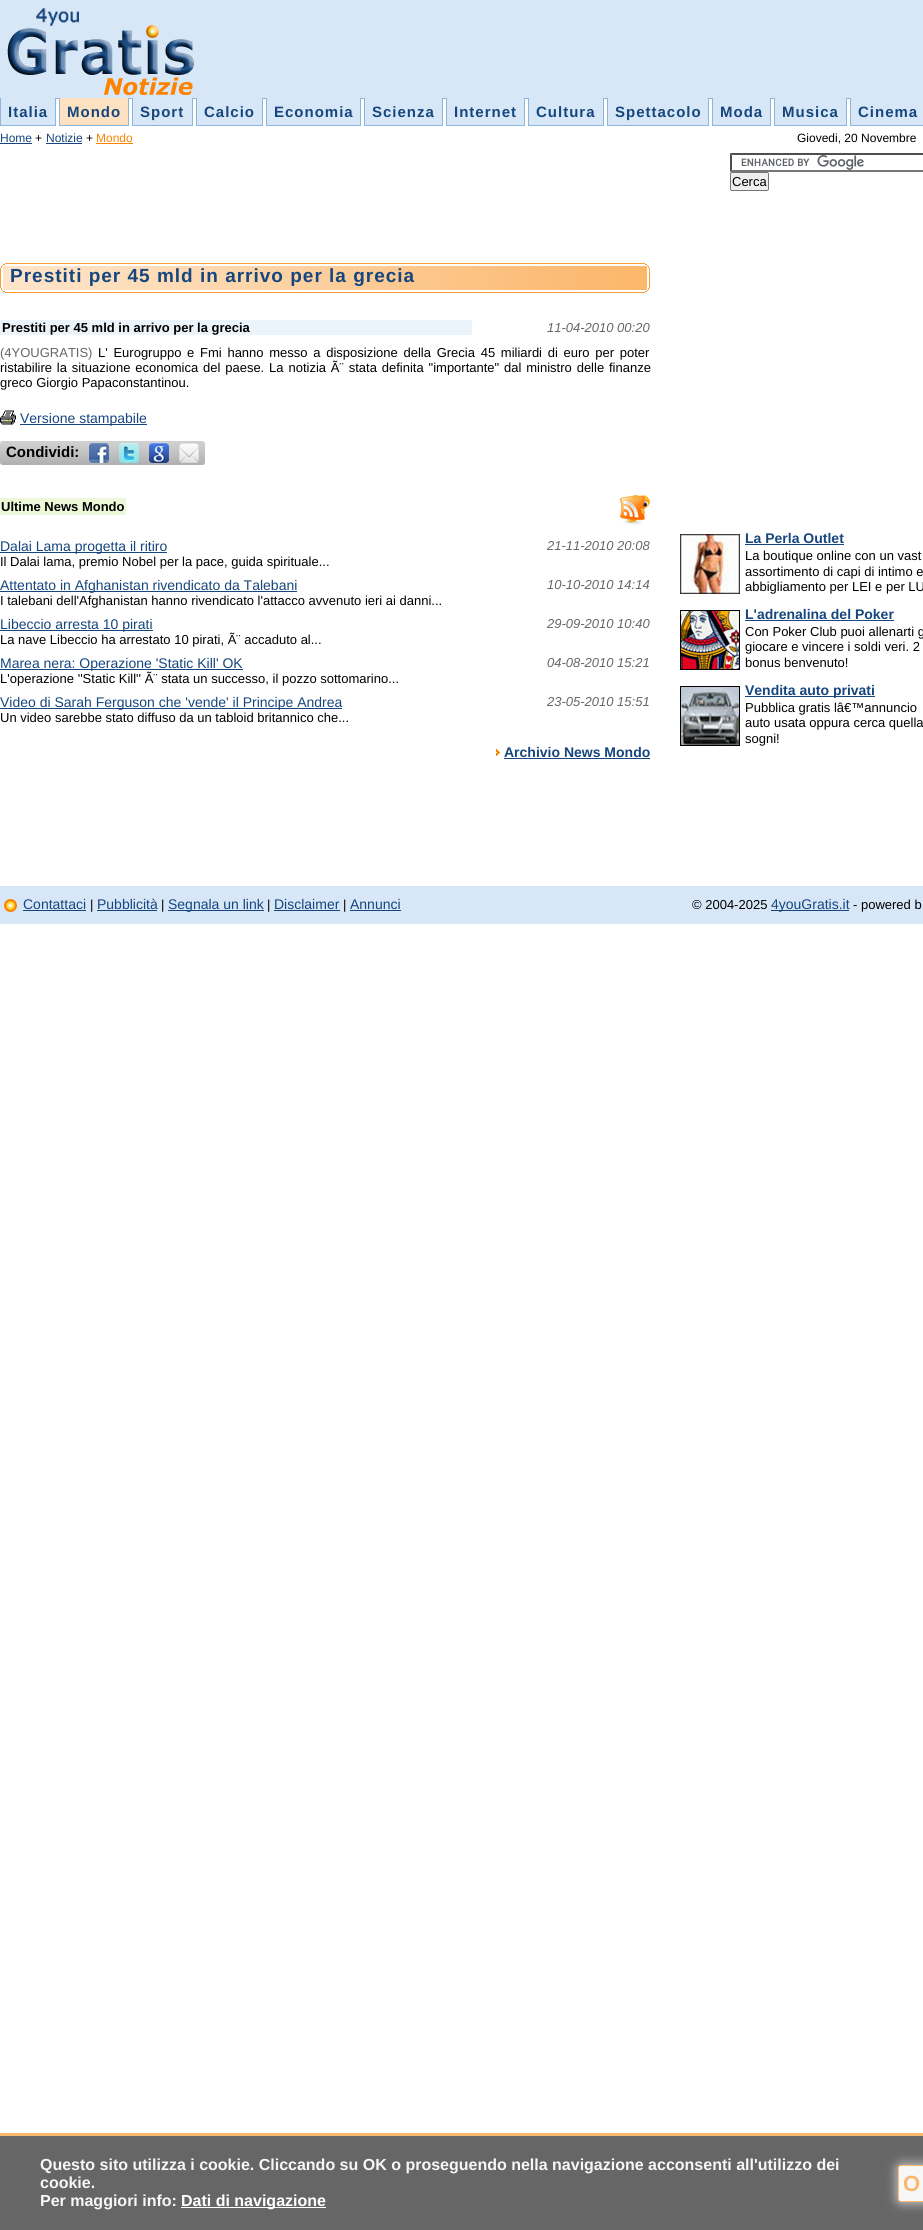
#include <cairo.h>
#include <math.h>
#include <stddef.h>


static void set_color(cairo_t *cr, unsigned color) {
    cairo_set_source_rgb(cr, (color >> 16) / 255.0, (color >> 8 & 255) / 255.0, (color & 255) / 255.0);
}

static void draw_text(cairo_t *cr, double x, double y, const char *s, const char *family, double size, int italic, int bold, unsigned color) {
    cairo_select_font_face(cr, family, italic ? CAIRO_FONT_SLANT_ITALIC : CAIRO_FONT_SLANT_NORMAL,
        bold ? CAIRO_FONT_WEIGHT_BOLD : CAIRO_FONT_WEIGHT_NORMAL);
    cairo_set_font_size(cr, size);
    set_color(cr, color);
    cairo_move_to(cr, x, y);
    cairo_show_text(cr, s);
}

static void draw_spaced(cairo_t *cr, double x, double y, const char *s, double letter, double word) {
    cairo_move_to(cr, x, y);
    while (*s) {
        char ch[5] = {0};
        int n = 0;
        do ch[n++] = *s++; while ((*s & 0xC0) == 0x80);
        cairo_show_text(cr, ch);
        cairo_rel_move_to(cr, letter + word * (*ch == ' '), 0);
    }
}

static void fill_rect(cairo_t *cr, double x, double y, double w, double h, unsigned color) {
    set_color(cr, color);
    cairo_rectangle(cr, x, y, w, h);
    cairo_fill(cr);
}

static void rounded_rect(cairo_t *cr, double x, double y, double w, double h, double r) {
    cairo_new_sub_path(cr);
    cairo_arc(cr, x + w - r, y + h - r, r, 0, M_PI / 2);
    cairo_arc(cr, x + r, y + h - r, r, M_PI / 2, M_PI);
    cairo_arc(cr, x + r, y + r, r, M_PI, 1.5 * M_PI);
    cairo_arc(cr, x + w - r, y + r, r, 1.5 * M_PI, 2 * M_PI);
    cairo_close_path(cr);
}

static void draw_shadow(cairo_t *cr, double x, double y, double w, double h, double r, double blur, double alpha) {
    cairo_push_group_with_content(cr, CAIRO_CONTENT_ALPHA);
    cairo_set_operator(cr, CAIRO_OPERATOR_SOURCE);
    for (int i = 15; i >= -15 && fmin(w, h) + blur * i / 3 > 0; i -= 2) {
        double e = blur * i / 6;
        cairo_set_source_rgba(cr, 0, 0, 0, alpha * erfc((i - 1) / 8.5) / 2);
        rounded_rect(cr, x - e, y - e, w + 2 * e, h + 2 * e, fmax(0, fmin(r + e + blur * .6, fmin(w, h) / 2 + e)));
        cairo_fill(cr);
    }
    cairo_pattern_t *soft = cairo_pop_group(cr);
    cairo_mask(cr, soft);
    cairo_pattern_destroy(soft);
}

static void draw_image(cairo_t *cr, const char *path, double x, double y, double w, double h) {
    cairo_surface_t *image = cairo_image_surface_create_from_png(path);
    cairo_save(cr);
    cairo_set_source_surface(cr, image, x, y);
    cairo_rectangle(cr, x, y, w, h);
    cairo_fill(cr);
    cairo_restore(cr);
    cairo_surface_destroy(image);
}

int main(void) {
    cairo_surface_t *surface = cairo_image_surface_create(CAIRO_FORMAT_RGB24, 923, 2230);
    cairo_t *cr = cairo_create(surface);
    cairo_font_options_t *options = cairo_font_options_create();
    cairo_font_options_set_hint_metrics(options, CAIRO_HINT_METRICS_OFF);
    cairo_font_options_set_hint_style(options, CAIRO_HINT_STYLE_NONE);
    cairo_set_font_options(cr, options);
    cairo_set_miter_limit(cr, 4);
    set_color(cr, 0xFFFFFF);
    cairo_paint(cr);
    fill_rect(cr, 0, 0, 923, 98, 0xD7E7F7);
    fill_rect(cr, 56, 98, 794, 1, 0x8EB5DA);
    draw_image(cr, "assets/img1.png", 7, 8, 187, 88);
    fill_rect(cr, 1, 98, 54, 27, 0xD7E7F7);
    fill_rect(cr, 55, 98, 1, 28, 0x8EB5DA);
    fill_rect(cr, 0, 125, 56, 1, 0x8EB5DA);
    fill_rect(cr, 0, 98, 1, 28, 0x8EB5DA);
    cairo_select_font_face(cr, "Liberation Sans", CAIRO_FONT_SLANT_NORMAL, CAIRO_FONT_WEIGHT_BOLD);
    cairo_set_font_size(cr, 15);
    set_color(cr, 0x16467D);
    draw_spaced(cr, 8, 117, "Italia", 1, 0);
    fill_rect(cr, 128, 98, 1, 28, 0x8EB5DA);
    fill_rect(cr, 59, 125, 70, 1, 0x8EB5DA);
    fill_rect(cr, 59, 98, 1, 28, 0x8EB5DA);
    fill_rect(cr, 60, 98, 68, 27, 0xFEE1C1);
    set_color(cr, 0x16467D);
    draw_spaced(cr, 67, 117, "Mondo", 1, 0);
    fill_rect(cr, 133, 98, 59, 27, 0xD7E7F7);
    fill_rect(cr, 192, 98, 1, 28, 0x8EB5DA);
    fill_rect(cr, 132, 125, 61, 1, 0x8EB5DA);
    fill_rect(cr, 132, 98, 1, 28, 0x8EB5DA);
    set_color(cr, 0x16467D);
    draw_spaced(cr, 140, 117, "Sport", 1, 0);
    fill_rect(cr, 197, 98, 65, 27, 0xD7E7F7);
    fill_rect(cr, 262, 98, 1, 28, 0x8EB5DA);
    fill_rect(cr, 196, 125, 67, 1, 0x8EB5DA);
    fill_rect(cr, 196, 98, 1, 28, 0x8EB5DA);
    set_color(cr, 0x16467D);
    draw_spaced(cr, 204, 117, "Calcio", 1, 0);
    fill_rect(cr, 267, 98, 93, 27, 0xD7E7F7);
    fill_rect(cr, 360, 98, 1, 28, 0x8EB5DA);
    fill_rect(cr, 266, 125, 95, 1, 0x8EB5DA);
    fill_rect(cr, 266, 98, 1, 28, 0x8EB5DA);
    set_color(cr, 0x16467D);
    draw_spaced(cr, 274, 117, "Economia", 1, 0);
    fill_rect(cr, 365, 98, 77, 27, 0xD7E7F7);
    fill_rect(cr, 442, 98, 1, 28, 0x8EB5DA);
    fill_rect(cr, 364, 125, 79, 1, 0x8EB5DA);
    fill_rect(cr, 364, 98, 1, 28, 0x8EB5DA);
    set_color(cr, 0x16467D);
    draw_spaced(cr, 372, 117, "Scienza", 1, 0);
    fill_rect(cr, 447, 98, 77, 27, 0xD7E7F7);
    fill_rect(cr, 524, 98, 1, 28, 0x8EB5DA);
    fill_rect(cr, 446, 125, 79, 1, 0x8EB5DA);
    fill_rect(cr, 446, 98, 1, 28, 0x8EB5DA);
    set_color(cr, 0x16467D);
    draw_spaced(cr, 454, 117, "Internet", 1, 0);
    fill_rect(cr, 529, 98, 74, 27, 0xD7E7F7);
    fill_rect(cr, 603, 98, 1, 28, 0x8EB5DA);
    fill_rect(cr, 528, 125, 76, 1, 0x8EB5DA);
    fill_rect(cr, 528, 98, 1, 28, 0x8EB5DA);
    set_color(cr, 0x16467D);
    draw_spaced(cr, 536, 117, "Cultura", 1, 0);
    fill_rect(cr, 608, 98, 100, 27, 0xD7E7F7);
    fill_rect(cr, 708, 98, 1, 28, 0x8EB5DA);
    fill_rect(cr, 607, 125, 102, 1, 0x8EB5DA);
    fill_rect(cr, 607, 98, 1, 28, 0x8EB5DA);
    set_color(cr, 0x16467D);
    draw_spaced(cr, 615, 117, "Spettacolo", 1, 0);
    fill_rect(cr, 713, 98, 57, 27, 0xD7E7F7);
    fill_rect(cr, 770, 98, 1, 28, 0x8EB5DA);
    fill_rect(cr, 712, 125, 59, 1, 0x8EB5DA);
    fill_rect(cr, 712, 98, 1, 28, 0x8EB5DA);
    set_color(cr, 0x16467D);
    draw_spaced(cr, 720, 117, "Moda", 1, 0);
    fill_rect(cr, 775, 98, 71, 27, 0xD7E7F7);
    fill_rect(cr, 846, 98, 1, 28, 0x8EB5DA);
    fill_rect(cr, 774, 125, 73, 1, 0x8EB5DA);
    fill_rect(cr, 774, 98, 1, 28, 0x8EB5DA);
    set_color(cr, 0x16467D);
    draw_spaced(cr, 782, 117, "Musica", 1, 0);
    fill_rect(cr, 851, 98, 72, 27, 0xD7E7F7);
    fill_rect(cr, 850, 125, 73, 1, 0x8EB5DA);
    fill_rect(cr, 850, 98, 1, 28, 0x8EB5DA);
    set_color(cr, 0x16467D);
    draw_spaced(cr, 858, 117, "Cinema", 1, 0);
    draw_text(cr, 0, 142, "Home", "Liberation Sans", 12, 0, 0, 0x16467D);
    fill_rect(cr, 0, 143, 32, 1, 0x16467D);
    draw_text(cr, 35, 142, "+", "Liberation Sans", 12, 0, 0, 0x000000);
    draw_text(cr, 46, 142, "Notizie", "Liberation Sans", 12, 0, 0, 0x16467D);
    fill_rect(cr, 46, 143, 36, 1, 0x16467D);
    draw_text(cr, 86, 142, "+", "Liberation Sans", 12, 0, 0, 0x000000);
    draw_text(cr, 96, 142, "Mondo", "Liberation Sans", 12, 0, 0, 0xFC8300);
    fill_rect(cr, 96, 143, 37, 1, 0xFC8300);
    draw_text(cr, 797, 142, "Giovedi, 20 Novembre", "Liberation Sans", 12, 0, 0, 0x000000);
    draw_image(cr, "assets/img2.png", 741, 155, 123, 15);
    set_color(cr, 0x4F4F4F);
    cairo_new_path(cr);
    cairo_move_to(cr, 730, 153);
    cairo_line_to(cr, 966, 153);
    cairo_line_to(cr, 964, 155);
    cairo_line_to(cr, 732, 155);
    cairo_close_path(cr);
    cairo_fill(cr);
    set_color(cr, 0x767676);
    cairo_new_path(cr);
    cairo_move_to(cr, 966, 172);
    cairo_line_to(cr, 730, 172);
    cairo_line_to(cr, 732, 170);
    cairo_line_to(cr, 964, 170);
    cairo_close_path(cr);
    cairo_fill(cr);
    set_color(cr, 0x4F4F4F);
    cairo_new_path(cr);
    cairo_move_to(cr, 730, 172);
    cairo_line_to(cr, 730, 153);
    cairo_line_to(cr, 732, 155);
    cairo_line_to(cr, 732, 170);
    cairo_close_path(cr);
    cairo_fill(cr);
    set_color(cr, 0xEFEFEF);
    rounded_rect(cr, 730.5, 172.5, 38, 18, 1.5);
    cairo_fill_preserve(cr);
    set_color(cr, 0x767676);
    cairo_set_line_width(cr, 1);
    cairo_stroke(cr);
    draw_text(cr, 732, 186, "Cerca", "Liberation Sans", 13, 0, 0, 0x000000);
    draw_image(cr, "assets/img3.png", 0, 263, 650, 30);
    cairo_select_font_face(cr, "Liberation Sans", CAIRO_FONT_SLANT_NORMAL, CAIRO_FONT_WEIGHT_BOLD);
    cairo_set_font_size(cr, 19);
    set_color(cr, 0x16467D);
    draw_spaced(cr, 10, 282, "Prestiti per 45 mld in arrivo per la grecia", 1, 0);
    fill_rect(cr, 0, 320, 472, 15, 0xECF4FB);
    draw_text(cr, 2, 332, "Prestiti per 45 mld in arrivo per la grecia", "Liberation Sans", 13, 0, 1, 0x000000);
    draw_text(cr, 547, 332, "11-04-2010 00:20", "Liberation Sans", 13, 1, 0, 0x666666);
    draw_text(cr, 0, 357, "(4YOUGRATIS)", "Liberation Sans", 13, 0, 0, 0x666666);
    set_color(cr, 0x000000);
    draw_spaced(cr, 98, 357, "L' Eurogruppo e Fmi hanno messo a disposizione della Grecia 45 miliardi di euro per poter", 0, 2.1);
    draw_spaced(cr, 0, 372, "ristabilire la situazione economica del paese. La notizia Ã¨ stata definita \"importante\" dal ministro delle finanze", 0, 1.25);
    draw_text(cr, 0, 387, "greco Giorgio Papaconstantinou.", "Liberation Sans", 13, 0, 0, 0x000000);
    draw_image(cr, "assets/img4.png", 0, 410, 16, 15);
    fill_rect(cr, 20, 424, 127, 1, 0x16467D);
    draw_text(cr, 20, 423, "Versione stampabile", "Liberation Sans", 14, 0, 0, 0x16467D);
    draw_image(cr, "assets/img5.png", 0, 441, 205, 24);
    draw_text(cr, 6, 457, "Condividi:", "Liberation Sans", 15, 0, 1, 0x000000);
    draw_image(cr, "assets/img6.png", 89, 443, 20, 20);
    draw_image(cr, "assets/img7.png", 119, 443, 20, 20);
    draw_image(cr, "assets/img8.png", 149, 443, 20, 20);
    draw_image(cr, "assets/img9.png", 179, 443, 20, 20);
    fill_rect(cr, 0, 498, 126, 17, 0xECF8D8);
    draw_text(cr, 1, 511, "Ultime News Mondo", "Liberation Sans", 13, 0, 1, 0x000000);
    draw_image(cr, "assets/img10.png", 620, 495, 30, 30);
    fill_rect(cr, 0, 552, 167, 1, 0x16467D);
    draw_text(cr, 0, 551, "Dalai Lama progetta il ritiro", "Liberation Sans", 14, 0, 0, 0x16467D);
    draw_text(cr, 0, 566, "Il Dalai lama, premio Nobel per la pace, guida spirituale...", "Liberation Sans", 13, 0, 0, 0x000000);
    draw_text(cr, 547, 550, "21-11-2010 20:08", "Liberation Sans", 13, 1, 0, 0x666666);
    fill_rect(cr, 0, 591, 297, 1, 0x16467D);
    draw_text(cr, 0, 590, "Attentato in Afghanistan rivendicato da Talebani", "Liberation Sans", 14, 0, 0, 0x16467D);
    draw_text(cr, 0, 605, "I talebani dell'Afghanistan hanno rivendicato l'attacco avvenuto ieri ai danni...", "Liberation Sans", 13, 0, 0, 0x000000);
    draw_text(cr, 547, 589, "10-10-2010 14:14", "Liberation Sans", 13, 1, 0, 0x666666);
    fill_rect(cr, 0, 630, 153, 1, 0x16467D);
    draw_text(cr, 0, 629, "Libeccio arresta 10 pirati", "Liberation Sans", 14, 0, 0, 0x16467D);
    draw_text(cr, 0, 644, "La nave Libeccio ha arrestato 10 pirati, Ã¨ accaduto al...", "Liberation Sans", 13, 0, 0, 0x000000);
    draw_text(cr, 547, 628, "29-09-2010 10:40", "Liberation Sans", 13, 1, 0, 0x666666);
    fill_rect(cr, 0, 669, 243, 1, 0x16467D);
    draw_text(cr, 0, 668, "Marea nera: Operazione 'Static Kill' OK", "Liberation Sans", 14, 0, 0, 0x16467D);
    draw_text(cr, 0, 683, "L'operazione ''Static Kill'' Ã¨ stata un successo, il pozzo sottomarino...", "Liberation Sans", 13, 0, 0, 0x000000);
    draw_text(cr, 547, 667, "04-08-2010 15:21", "Liberation Sans", 13, 1, 0, 0x666666);
    fill_rect(cr, 0, 708, 342, 1, 0x16467D);
    draw_text(cr, 0, 707, "Video di Sarah Ferguson che 'vende' il Principe Andrea", "Liberation Sans", 14, 0, 0, 0x16467D);
    draw_text(cr, 0, 722, "Un video sarebbe stato diffuso da un tabloid britannico che...", "Liberation Sans", 13, 0, 0, 0x000000);
    draw_text(cr, 547, 706, "23-05-2010 15:51", "Liberation Sans", 13, 1, 0, 0x666666);
    draw_image(cr, "assets/img11.png", 496, 749, 4, 7);
    draw_text(cr, 504, 757, "Archivio News Mondo", "Liberation Sans", 14, 0, 1, 0x16467D);
    fill_rect(cr, 504, 758, 146, 1, 0x16467D);
    draw_image(cr, "assets/img12.png", 680, 534, 60, 60);
    draw_text(cr, 745, 543, "La Perla Outlet", "Liberation Sans", 14, 0, 1, 0x16467D);
    fill_rect(cr, 745, 544, 99, 1, 0x16467D);
    draw_text(cr, 745, 560, "La boutique online con un vast", "Liberation Sans", 13, 0, 0, 0x000000);
    draw_text(cr, 745, 576, "assortimento di capi di intimo e", "Liberation Sans", 13, 0, 0, 0x000000);
    draw_text(cr, 745, 591, "abbigliamento per LEI e per LU", "Liberation Sans", 13, 0, 0, 0x000000);
    draw_image(cr, "assets/img13.png", 680, 610, 60, 60);
    draw_text(cr, 745, 619, "L'adrenalina del Poker", "Liberation Sans", 14, 0, 1, 0x16467D);
    fill_rect(cr, 745, 620, 149, 1, 0x16467D);
    draw_text(cr, 745, 636, "Con Poker Club puoi allenarti g", "Liberation Sans", 13, 0, 0, 0x000000);
    draw_text(cr, 745, 651, "giocare e vincere i soldi veri. 2", "Liberation Sans", 13, 0, 0, 0x000000);
    draw_text(cr, 745, 667, "bonus benvenuto!", "Liberation Sans", 13, 0, 0, 0x000000);
    draw_image(cr, "assets/img14.png", 680, 686, 60, 60);
    fill_rect(cr, 745, 696, 130, 1, 0x16467D);
    draw_text(cr, 745, 695, "Vendita auto privati", "Liberation Sans", 14, 0, 1, 0x16467D);
    draw_text(cr, 745, 712, "Pubblica gratis lâ€™annuncio", "Liberation Sans", 13, 0, 0, 0x000000);
    draw_text(cr, 745, 727, "auto usata oppura cerca quella", "Liberation Sans", 13, 0, 0, 0x000000);
    draw_text(cr, 745, 743, "sogni!", "Liberation Sans", 13, 0, 0, 0x000000);
    fill_rect(cr, 0, 886, 923, 38, 0xD7E7F7);
    draw_image(cr, "assets/img15.png", 4, 899, 13, 13);
    draw_text(cr, 23, 909, "Contattaci", "Liberation Sans", 14, 0, 0, 0x16467D);
    fill_rect(cr, 23, 910, 63, 1, 0x16467D);
    draw_text(cr, 90, 909, "|", "Liberation Sans", 13, 0, 0, 0x000000);
    draw_text(cr, 97, 909, "Pubblicità", "Liberation Sans", 14, 0, 0, 0x16467D);
    fill_rect(cr, 97, 910, 60, 1, 0x16467D);
    draw_text(cr, 161, 909, "|", "Liberation Sans", 13, 0, 0, 0x000000);
    fill_rect(cr, 168, 910, 96, 1, 0x16467D);
    draw_text(cr, 168, 909, "Segnala un link", "Liberation Sans", 14, 0, 0, 0x16467D);
    draw_text(cr, 267, 909, "|", "Liberation Sans", 13, 0, 0, 0x000000);
    draw_text(cr, 274, 909, "Disclaimer", "Liberation Sans", 14, 0, 0, 0x16467D);
    fill_rect(cr, 274, 910, 66, 1, 0x16467D);
    draw_text(cr, 343, 909, "|", "Liberation Sans", 13, 0, 0, 0x000000);
    draw_text(cr, 350, 909, "Annunci", "Liberation Sans", 14, 0, 0, 0x16467D);
    fill_rect(cr, 350, 910, 51, 1, 0x16467D);
    draw_text(cr, 692, 909, "© 2004-2025", "Liberation Sans", 13, 0, 0, 0x000000);
    fill_rect(cr, 771, 910, 78, 1, 0x16467D);
    draw_text(cr, 771, 909, "4youGratis.it", "Liberation Sans", 14, 0, 0, 0x16467D);
    draw_text(cr, 853, 909, "- powered b", "Liberation Sans", 13, 0, 0, 0x000000);
    fill_rect(cr, 0, 2136, 923, 94, 0x666666);
    fill_rect(cr, 0, 2133, 923, 3, 0xFBB86D);
    draw_text(cr, 40, 2170, "Questo sito utilizza i cookie. Cliccando su OK o proseguendo nella navigazione acconsenti all'utilizzo dei", "Liberation Sans", 16, 0, 1, 0xF7F7F7);
    draw_text(cr, 40, 2188, "cookie.", "Liberation Sans", 16, 0, 1, 0xF7F7F7);
    draw_text(cr, 40, 2206, "Per maggiori info:", "Liberation Sans", 16, 0, 1, 0xF7F7F7);
    fill_rect(cr, 181, 2207, 145, 1, 0xFFFFFF);
    draw_text(cr, 181, 2206, "Dati di navigazione", "Liberation Sans", 16, 0, 1, 0xFFFFFF);
    set_color(cr, 0xFFFFFF);
    draw_shadow(cr, 898, 2165, 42, 37, 3, 6, 0.8);
    set_color(cr, 0xF7F7F7);
    rounded_rect(cr, 898.5, 2165.5, 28, 36, 2.5);
    cairo_fill_preserve(cr);
    set_color(cr, 0xFBB86D);
    cairo_stroke(cr);
    draw_text(cr, 903, 2191, "O", "Liberation Sans", 22, 0, 1, 0xFBB86D);
    cairo_surface_write_to_png(surface, "output.png");
    cairo_font_options_destroy(options);
    cairo_destroy(cr);
    cairo_surface_destroy(surface);
    return 0;
}
